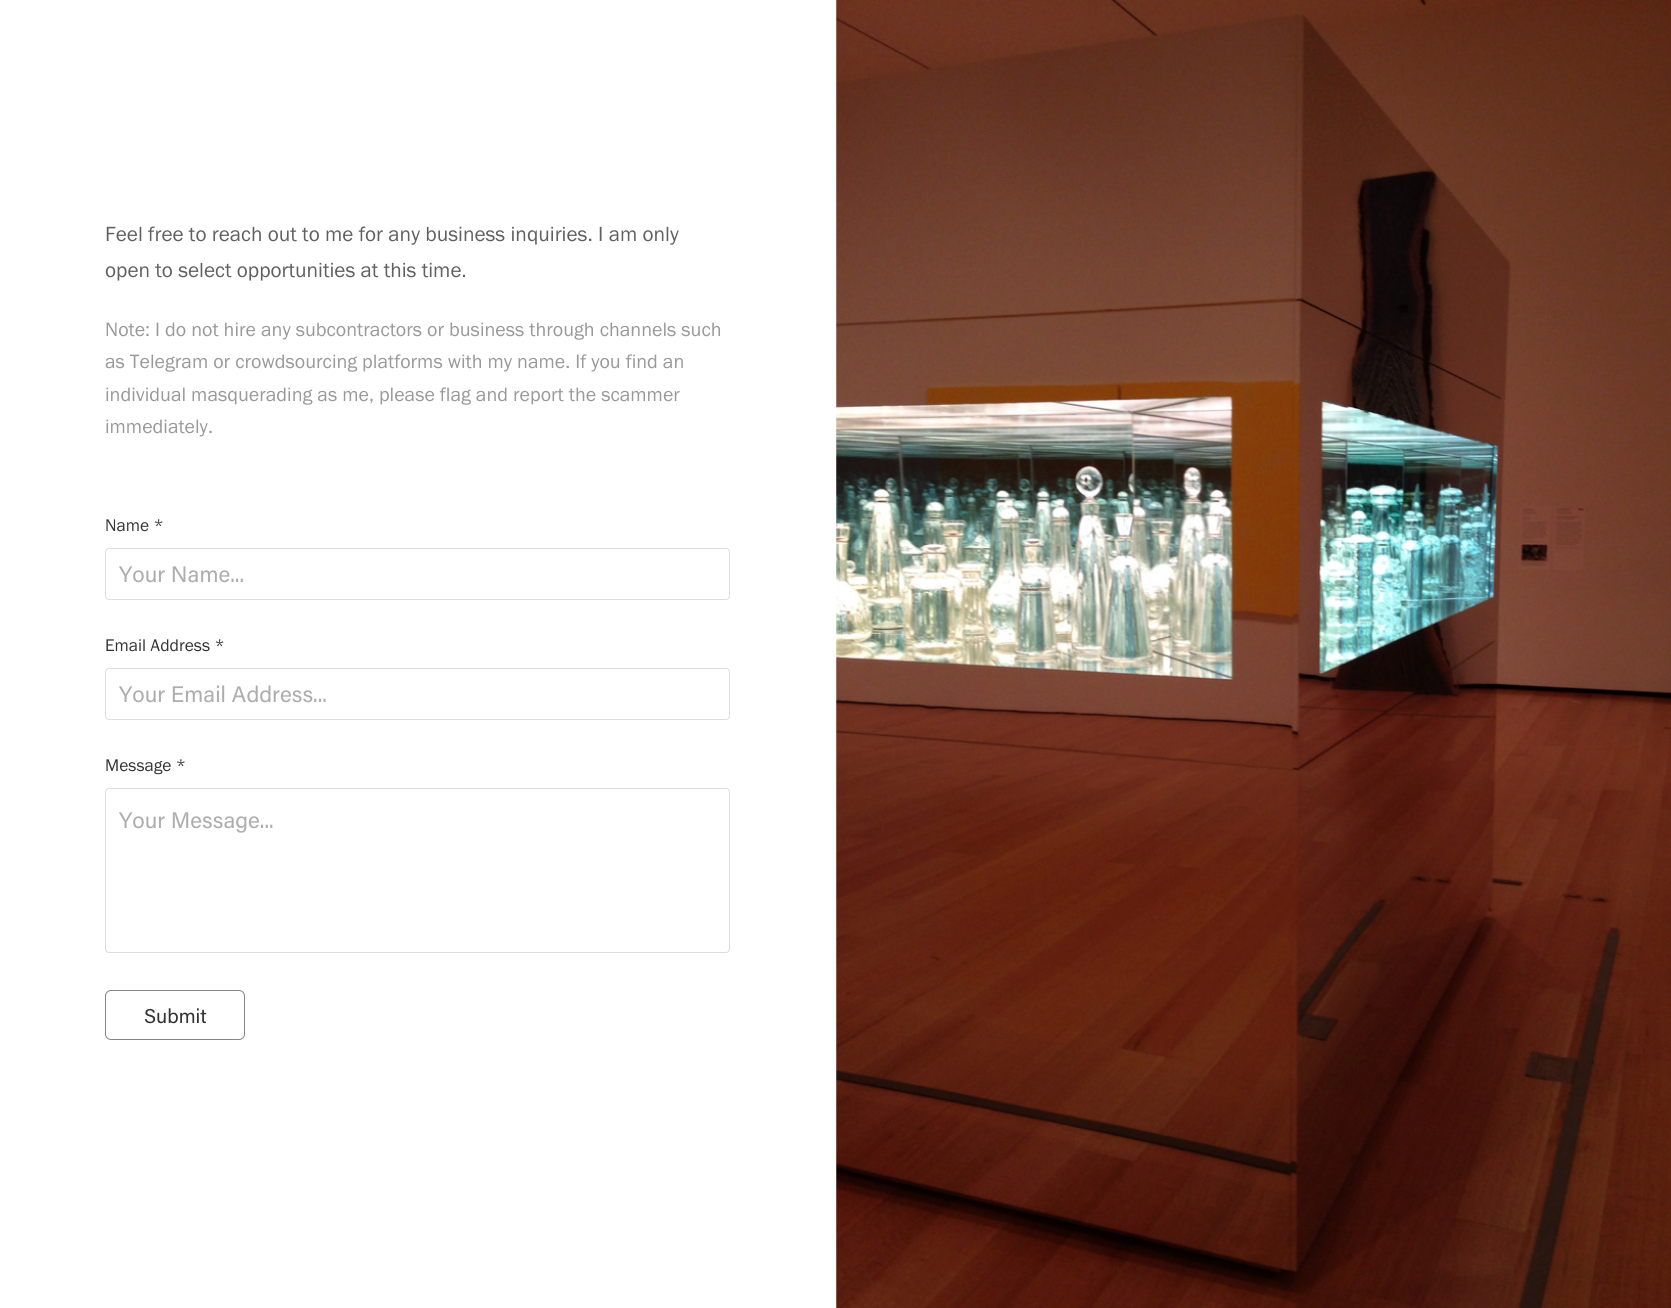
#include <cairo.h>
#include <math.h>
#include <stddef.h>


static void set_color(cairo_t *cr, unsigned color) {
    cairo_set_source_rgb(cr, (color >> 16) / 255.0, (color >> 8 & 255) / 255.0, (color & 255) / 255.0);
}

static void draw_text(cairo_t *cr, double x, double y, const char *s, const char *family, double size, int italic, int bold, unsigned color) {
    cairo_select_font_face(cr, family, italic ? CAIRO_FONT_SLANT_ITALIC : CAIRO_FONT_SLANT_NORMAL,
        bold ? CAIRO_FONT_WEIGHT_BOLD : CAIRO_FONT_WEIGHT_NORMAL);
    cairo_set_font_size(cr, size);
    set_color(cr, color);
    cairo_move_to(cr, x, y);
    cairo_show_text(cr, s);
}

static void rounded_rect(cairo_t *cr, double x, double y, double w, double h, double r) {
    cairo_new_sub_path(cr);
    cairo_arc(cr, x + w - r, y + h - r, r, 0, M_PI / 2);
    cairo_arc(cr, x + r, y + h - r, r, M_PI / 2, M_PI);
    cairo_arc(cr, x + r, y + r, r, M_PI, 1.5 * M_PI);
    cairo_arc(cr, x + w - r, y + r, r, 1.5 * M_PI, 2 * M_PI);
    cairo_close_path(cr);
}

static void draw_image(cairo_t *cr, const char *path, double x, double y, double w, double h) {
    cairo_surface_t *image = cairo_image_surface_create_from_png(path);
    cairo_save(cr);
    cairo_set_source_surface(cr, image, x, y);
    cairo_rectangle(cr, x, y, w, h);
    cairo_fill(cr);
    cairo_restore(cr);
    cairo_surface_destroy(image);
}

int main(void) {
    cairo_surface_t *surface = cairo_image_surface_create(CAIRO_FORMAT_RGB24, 1671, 1308);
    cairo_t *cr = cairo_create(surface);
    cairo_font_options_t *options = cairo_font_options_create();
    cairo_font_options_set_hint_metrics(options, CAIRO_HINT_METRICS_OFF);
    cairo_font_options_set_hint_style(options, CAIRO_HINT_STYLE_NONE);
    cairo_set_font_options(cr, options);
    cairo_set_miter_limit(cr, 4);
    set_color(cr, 0xFFFFFF);
    cairo_paint(cr);
    draw_text(cr, 105, 241, "Feel free to reach out to me for any business inquiries. I am only", "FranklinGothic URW", 21.25, 0, 0, 0x606060);
    draw_text(cr, 105, 277, "open to select opportunities at this time.", "FranklinGothic URW", 21.25, 0, 0, 0x606060);
    draw_text(cr, 105, 336, "Note: I do not hire any subcontractors or business through channels such", "FranklinGothic URW", 20, 0, 0, 0x999999);
    draw_text(cr, 105, 368, "as Telegram or crowdsourcing platforms with my name. If you find an", "FranklinGothic URW", 20, 0, 0, 0x999999);
    draw_text(cr, 105, 401, "individual masquerading as me, please flag and report the scammer", "FranklinGothic URW", 20, 0, 0, 0x999999);
    draw_text(cr, 105, 433, "immediately.", "FranklinGothic URW", 20, 0, 0, 0x999999);
    draw_text(cr, 105, 531, "Name *", "FranklinGothic URW", 17.5, 0, 0, 0x333333);
    rounded_rect(cr, 105.5, 548.5, 624, 51, 3.5);
    set_color(cr, 0xDDDDDD);
    cairo_set_line_width(cr, 1);
    cairo_stroke(cr);
    draw_text(cr, 119, 582, "Your Name...", "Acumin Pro", 22.5, 0, 0, 0xADADAD);
    draw_text(cr, 105, 651, "Email Address *", "FranklinGothic URW", 17.5, 0, 0, 0x333333);
    rounded_rect(cr, 105.5, 668.5, 624, 51, 3.5);
    set_color(cr, 0xDDDDDD);
    cairo_stroke(cr);
    draw_text(cr, 119, 702, "Your Email Address...", "Acumin Pro", 22.5, 0, 0, 0xADADAD);
    draw_text(cr, 105, 771, "Message *", "FranklinGothic URW", 17.5, 0, 0, 0x333333);
    rounded_rect(cr, 105.5, 788.5, 624, 164, 3.5);
    set_color(cr, 0xDDDDDD);
    cairo_stroke(cr);
    draw_text(cr, 119, 828, "Your Message...", "Acumin Pro", 22.5, 0, 0, 0xADADAD);
    rounded_rect(cr, 105.5, 990.5, 139, 49, 5.5);
    set_color(cr, 0x858585);
    cairo_stroke(cr);
    draw_text(cr, 144, 1023, "Submit", "Acumin Pro", 20, 0, 0, 0x333333);
    draw_image(cr, "assets/img1.png", 836, 0, 835, 1308);
    cairo_surface_write_to_png(surface, "output.png");
    cairo_font_options_destroy(options);
    cairo_destroy(cr);
    cairo_surface_destroy(surface);
    return 0;
}
